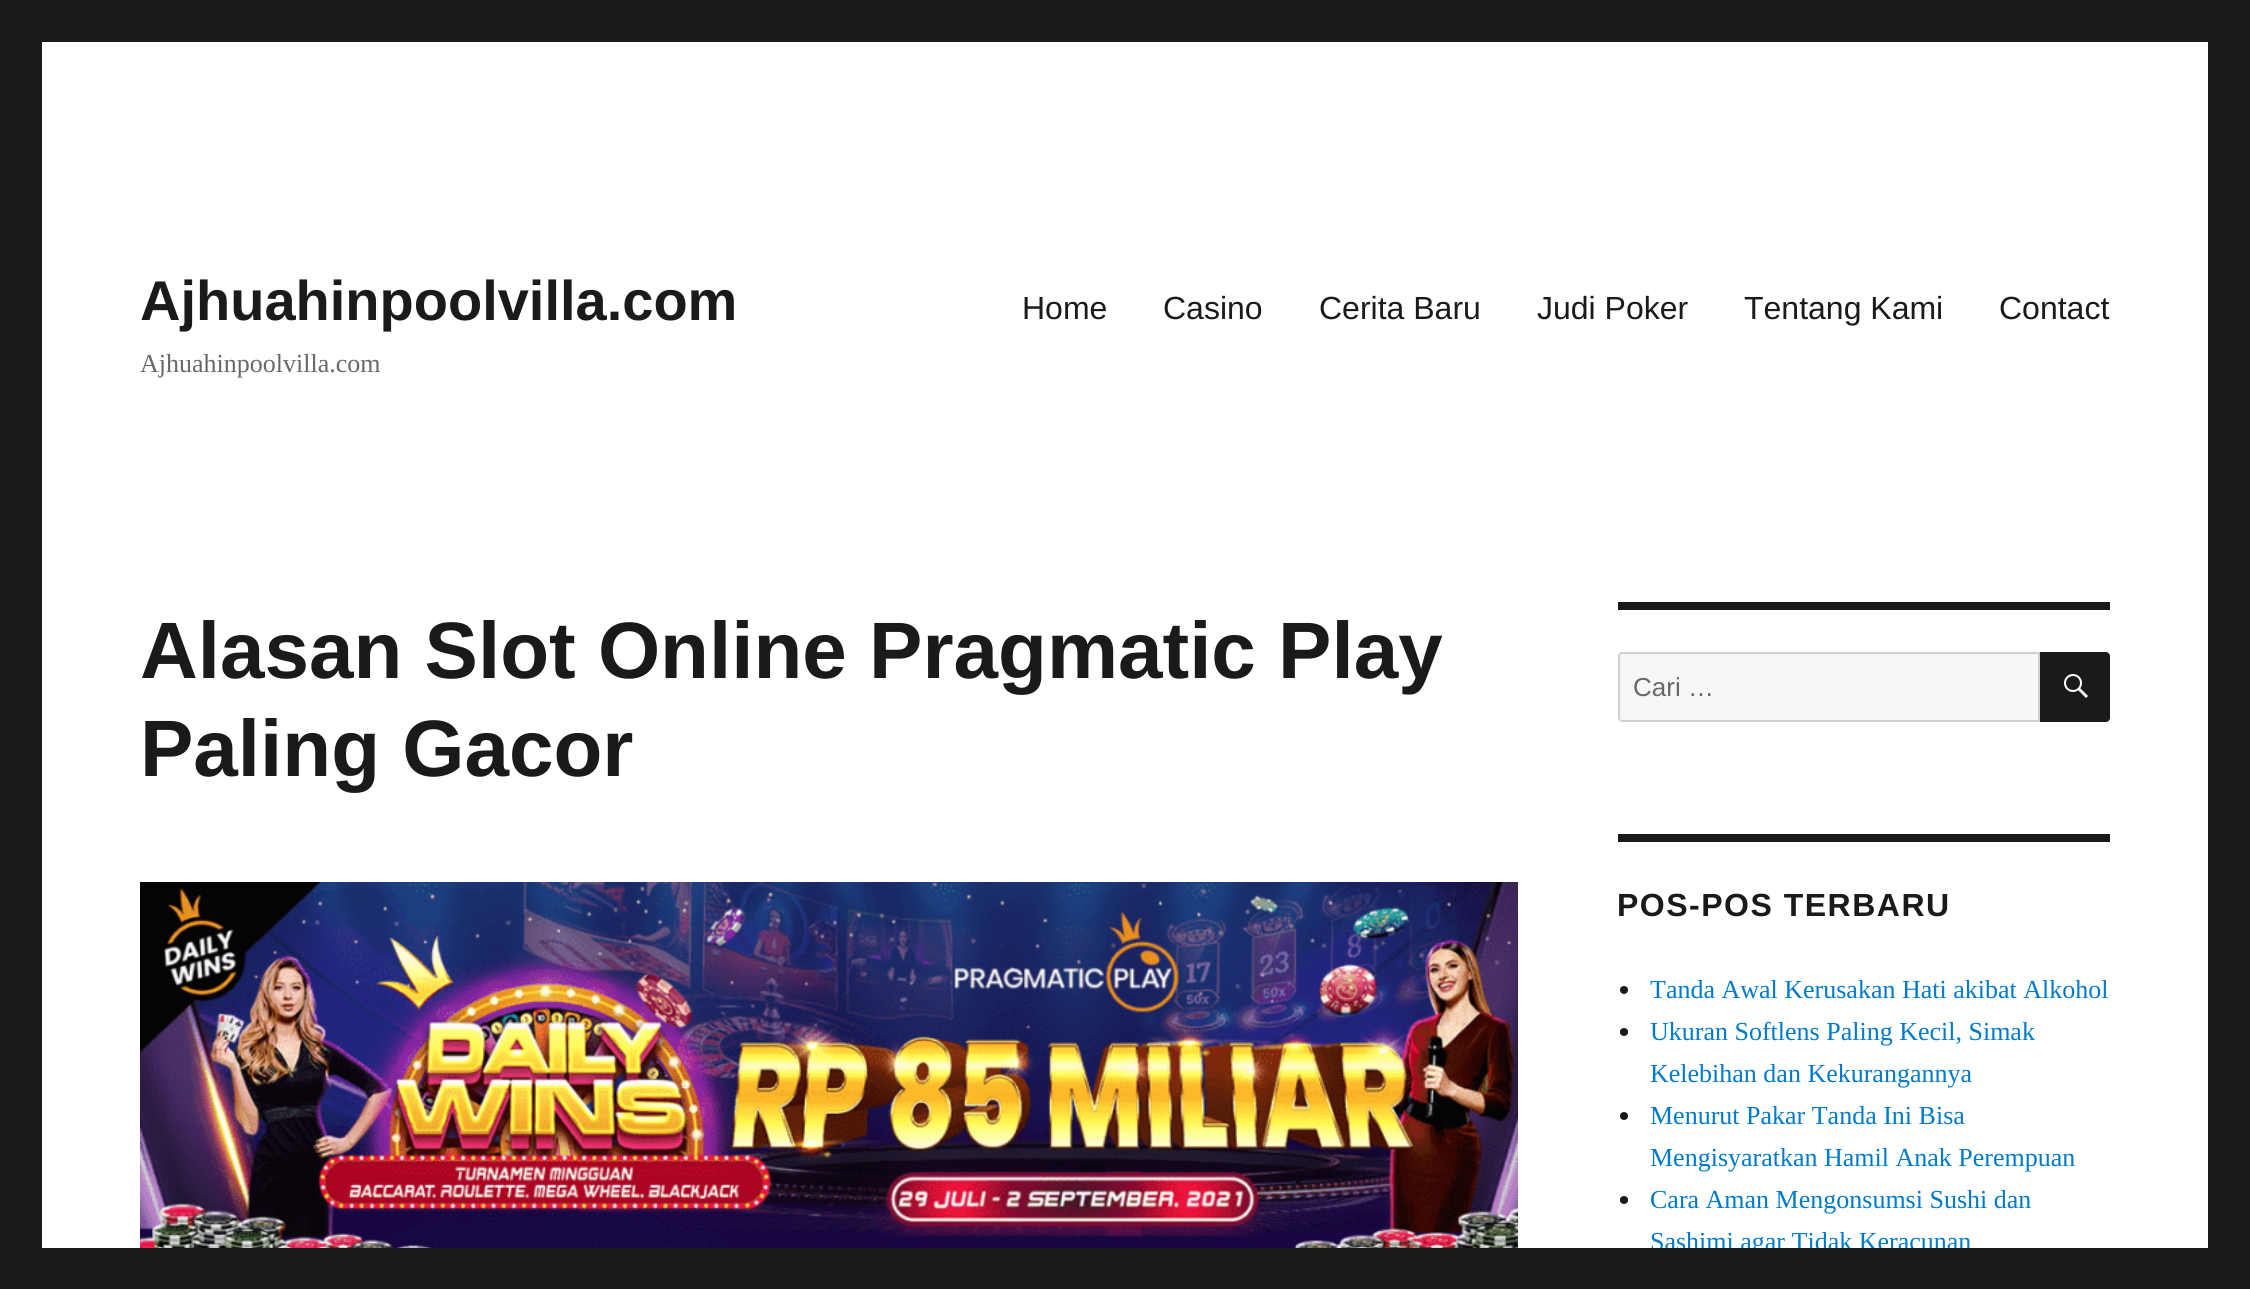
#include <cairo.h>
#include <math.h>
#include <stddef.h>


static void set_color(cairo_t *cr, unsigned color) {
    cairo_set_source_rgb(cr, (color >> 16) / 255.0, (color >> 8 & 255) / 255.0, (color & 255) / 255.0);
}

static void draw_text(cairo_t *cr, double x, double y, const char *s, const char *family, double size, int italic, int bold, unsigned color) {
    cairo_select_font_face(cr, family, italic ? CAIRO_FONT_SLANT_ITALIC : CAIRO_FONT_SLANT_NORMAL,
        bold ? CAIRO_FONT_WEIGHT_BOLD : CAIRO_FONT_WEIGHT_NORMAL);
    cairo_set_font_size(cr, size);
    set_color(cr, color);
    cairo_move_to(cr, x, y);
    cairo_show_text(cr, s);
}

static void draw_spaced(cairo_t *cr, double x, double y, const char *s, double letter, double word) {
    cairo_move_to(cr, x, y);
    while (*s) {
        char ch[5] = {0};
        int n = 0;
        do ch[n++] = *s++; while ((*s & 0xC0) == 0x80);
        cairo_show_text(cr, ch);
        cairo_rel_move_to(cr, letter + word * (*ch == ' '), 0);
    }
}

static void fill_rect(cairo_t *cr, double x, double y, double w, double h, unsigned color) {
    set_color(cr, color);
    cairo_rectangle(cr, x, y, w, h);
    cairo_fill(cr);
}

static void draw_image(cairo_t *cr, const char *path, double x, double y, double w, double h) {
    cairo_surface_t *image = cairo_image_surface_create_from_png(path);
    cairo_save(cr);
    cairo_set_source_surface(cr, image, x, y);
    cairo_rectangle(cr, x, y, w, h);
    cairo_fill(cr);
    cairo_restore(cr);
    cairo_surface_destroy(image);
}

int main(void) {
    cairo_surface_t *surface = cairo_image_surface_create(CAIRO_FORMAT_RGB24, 2250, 1289);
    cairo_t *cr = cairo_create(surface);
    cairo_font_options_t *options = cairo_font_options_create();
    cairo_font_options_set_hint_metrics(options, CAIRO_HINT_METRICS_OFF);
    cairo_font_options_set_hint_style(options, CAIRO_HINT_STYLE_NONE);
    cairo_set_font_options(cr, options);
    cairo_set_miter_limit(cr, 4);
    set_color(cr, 0x1A1A1A);
    cairo_paint(cr);
    fill_rect(cr, 42, 42, 2166, 1206, 0xFFFFFF);
    draw_text(cr, 140, 320, "Ajhuahinpoolvilla.com", "Liberation Sans", 56, 0, 1, 0x1A1A1A);
    draw_text(cr, 140, 372, "Ajhuahinpoolvilla.com", "Liberation Serif", 26, 0, 0, 0x686868);
    draw_text(cr, 1022, 319, "Home", "Liberation Sans", 32, 0, 0, 0x1A1A1A);
    draw_text(cr, 1163, 319, "Casino", "Liberation Sans", 32, 0, 0, 0x1A1A1A);
    draw_text(cr, 1319, 319, "Cerita Baru", "Liberation Sans", 32, 0, 0, 0x1A1A1A);
    draw_text(cr, 1537, 319, "Judi Poker", "Liberation Sans", 32, 0, 0, 0x1A1A1A);
    draw_text(cr, 1744, 319, "Tentang Kami", "Liberation Sans", 32, 0, 0, 0x1A1A1A);
    draw_text(cr, 1999, 319, "Contact", "Liberation Sans", 32, 0, 0, 0x1A1A1A);
    draw_text(cr, 140, 678, "Alasan Slot Online Pragmatic Play", "Liberation Sans", 80, 0, 1, 0x1A1A1A);
    draw_text(cr, 140, 776, "Paling Gacor", "Liberation Sans", 80, 0, 1, 0x1A1A1A);
    draw_image(cr, "assets/img1.png", 140, 882, 1378, 366);
    fill_rect(cr, 1618, 602, 492, 8, 0x1A1A1A);
    set_color(cr, 0xF7F7F7);
    cairo_new_path(cr);
    cairo_move_to(cr, 1622, 653);
    cairo_line_to(cr, 2039, 653);
    cairo_line_to(cr, 2039, 721);
    cairo_line_to(cr, 1622, 721);
    cairo_curve_to(cr, 1620.5, 721, 1619, 719.5, 1619, 718);
    cairo_line_to(cr, 1619, 656);
    cairo_curve_to(cr, 1619, 654.5, 1620.5, 653, 1622, 653);
    cairo_close_path(cr);
    cairo_fill_preserve(cr);
    set_color(cr, 0xD1D1D1);
    cairo_stroke(cr);
    draw_text(cr, 1633, 696, "Cari …", "Liberation Sans", 26, 0, 0, 0x686868);
    set_color(cr, 0x1A1A1A);
    cairo_new_path(cr);
    cairo_move_to(cr, 2040, 652);
    cairo_line_to(cr, 2106, 652);
    cairo_curve_to(cr, 2108, 652, 2110, 654, 2110, 656);
    cairo_line_to(cr, 2110, 718);
    cairo_curve_to(cr, 2110, 720, 2108, 722, 2106, 722);
    cairo_line_to(cr, 2040, 722);
    cairo_close_path(cr);
    cairo_fill(cr);
    draw_image(cr, "assets/img2.png", 2064, 674, 24, 24);
    fill_rect(cr, 1618, 834, 492, 8, 0x1A1A1A);
    cairo_select_font_face(cr, "Liberation Sans", CAIRO_FONT_SLANT_NORMAL, CAIRO_FONT_WEIGHT_BOLD);
    cairo_set_font_size(cr, 32);
    draw_spaced(cr, 1617, 916, "POS-POS TERBARU", 1.5, 0);
    cairo_new_path(cr);
    cairo_arc(cr, 1624, 990, 4, 0, 2 * M_PI);
    cairo_fill(cr);
    draw_text(cr, 1650, 998, "Tanda Awal Kerusakan Hati akibat Alkohol", "Liberation Serif", 26, 0, 0, 0x007ACC);
    set_color(cr, 0x1A1A1A);
    cairo_new_path(cr);
    cairo_arc(cr, 1624, 1032, 4, 0, 2 * M_PI);
    cairo_fill(cr);
    draw_text(cr, 1650, 1040, "Ukuran Softlens Paling Kecil, Simak", "Liberation Serif", 26, 0, 0, 0x007ACC);
    draw_text(cr, 1650, 1082, "Kelebihan dan Kekurangannya", "Liberation Serif", 26, 0, 0, 0x007ACC);
    set_color(cr, 0x1A1A1A);
    cairo_new_path(cr);
    cairo_arc(cr, 1624, 1116, 4, 0, 2 * M_PI);
    cairo_fill(cr);
    draw_text(cr, 1650, 1124, "Menurut Pakar Tanda Ini Bisa", "Liberation Serif", 26, 0, 0, 0x007ACC);
    draw_text(cr, 1650, 1166, "Mengisyaratkan Hamil Anak Perempuan", "Liberation Serif", 26, 0, 0, 0x007ACC);
    set_color(cr, 0x1A1A1A);
    cairo_new_path(cr);
    cairo_arc(cr, 1624, 1200, 4, 0, 2 * M_PI);
    cairo_fill(cr);
    draw_text(cr, 1650, 1208, "Cara Aman Mengonsumsi Sushi dan", "Liberation Serif", 26, 0, 0, 0x007ACC);
    draw_text(cr, 1650, 1250, "Sashimi agar Tidak Keracunan", "Liberation Serif", 26, 0, 0, 0x007ACC);
    fill_rect(cr, 1651, 1248, 320, 8, 0x1A1A1A);
    cairo_surface_write_to_png(surface, "output.png");
    cairo_font_options_destroy(options);
    cairo_destroy(cr);
    cairo_surface_destroy(surface);
    return 0;
}
